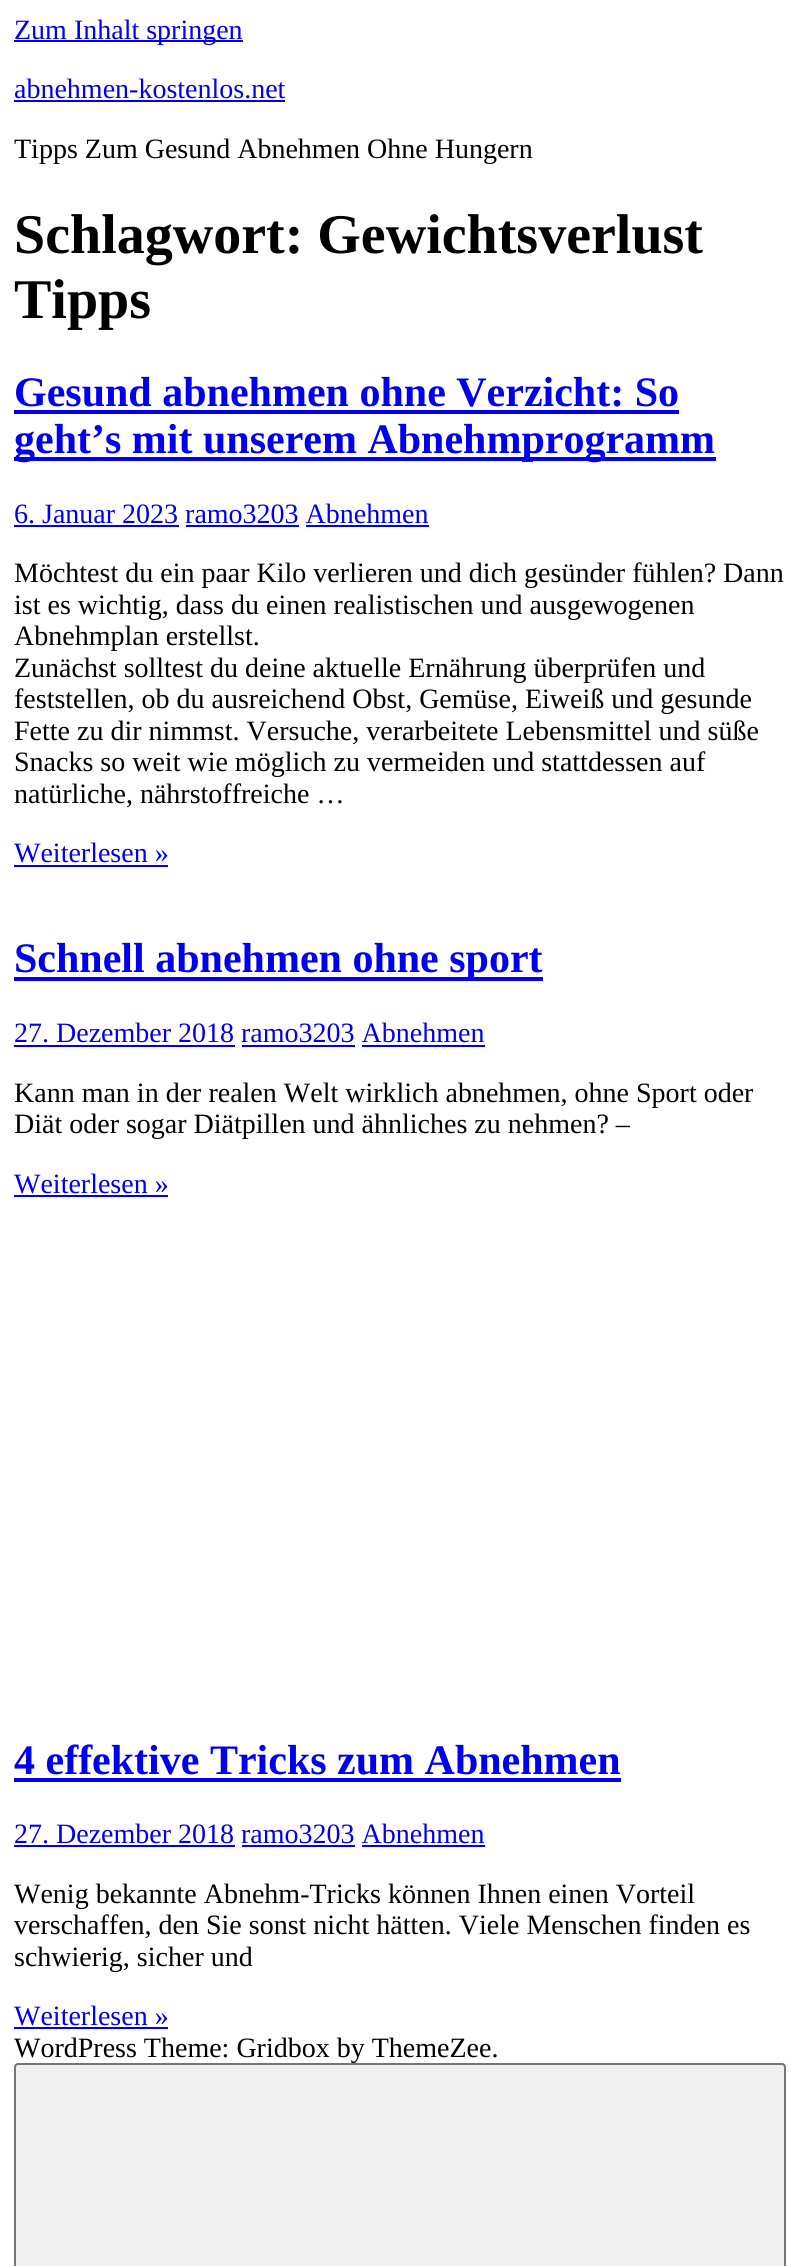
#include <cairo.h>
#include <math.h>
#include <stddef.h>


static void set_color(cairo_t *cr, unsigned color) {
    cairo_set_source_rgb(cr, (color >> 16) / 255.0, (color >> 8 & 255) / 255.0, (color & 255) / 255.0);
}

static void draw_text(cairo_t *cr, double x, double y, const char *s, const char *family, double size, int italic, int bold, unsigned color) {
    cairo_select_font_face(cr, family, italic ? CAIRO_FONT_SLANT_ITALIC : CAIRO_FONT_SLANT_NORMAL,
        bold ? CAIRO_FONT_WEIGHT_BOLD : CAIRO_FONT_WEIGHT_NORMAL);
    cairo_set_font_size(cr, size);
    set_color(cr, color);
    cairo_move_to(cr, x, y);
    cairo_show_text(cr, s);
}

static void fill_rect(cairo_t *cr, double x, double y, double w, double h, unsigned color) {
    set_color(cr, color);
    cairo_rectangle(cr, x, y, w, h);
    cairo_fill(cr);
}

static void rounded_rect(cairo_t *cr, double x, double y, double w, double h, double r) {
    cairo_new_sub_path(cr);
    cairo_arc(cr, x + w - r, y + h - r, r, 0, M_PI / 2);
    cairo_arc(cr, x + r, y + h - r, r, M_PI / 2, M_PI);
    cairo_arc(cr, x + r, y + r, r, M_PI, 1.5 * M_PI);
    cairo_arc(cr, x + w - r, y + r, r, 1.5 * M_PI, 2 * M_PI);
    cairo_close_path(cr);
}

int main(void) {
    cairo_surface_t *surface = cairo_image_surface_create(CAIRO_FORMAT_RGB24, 799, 2266);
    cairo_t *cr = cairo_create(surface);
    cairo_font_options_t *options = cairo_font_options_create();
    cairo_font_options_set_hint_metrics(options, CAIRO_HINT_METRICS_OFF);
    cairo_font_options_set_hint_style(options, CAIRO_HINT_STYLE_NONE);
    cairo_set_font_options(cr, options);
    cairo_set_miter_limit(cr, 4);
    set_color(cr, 0xFFFFFF);
    cairo_paint(cr);
    fill_rect(cr, 14, 40, 229, 2, 0x0000EE);
    draw_text(cr, 14, 39, "Zum Inhalt springen", "Liberation Serif", 28, 0, 0, 0x0000EE);
    draw_text(cr, 14, 98, "abnehmen-kostenlos.net", "Liberation Serif", 28, 0, 0, 0x0000EE);
    fill_rect(cr, 14, 100, 271, 2, 0x0000EE);
    draw_text(cr, 14, 158, "Tipps Zum Gesund Abnehmen Ohne Hungern", "Liberation Serif", 28, 0, 0, 0x000000);
    draw_text(cr, 14, 253, "Schlagwort: Gewichtsverlust", "Liberation Serif", 56, 0, 1, 0x000000);
    draw_text(cr, 14, 318, "Tipps", "Liberation Serif", 56, 0, 1, 0x000000);
    draw_text(cr, 14, 406, "Gesund abnehmen ohne Verzicht: So", "Liberation Serif", 42, 0, 1, 0x0000EE);
    fill_rect(cr, 14, 410, 665, 4, 0x0000EE);
    fill_rect(cr, 14, 457, 702, 4, 0x0000EE);
    draw_text(cr, 14, 453, "geht’s mit unserem Abnehmprogramm", "Liberation Serif", 42, 0, 1, 0x0000EE);
    draw_text(cr, 14, 523, "6. Januar 2023 ramo3203 Abnehmen", "Liberation Serif", 28, 0, 0, 0x0000EE);
    fill_rect(cr, 14, 525, 165, 2, 0x0000EE);
    fill_rect(cr, 186, 525, 113, 2, 0x0000EE);
    fill_rect(cr, 306, 525, 123, 2, 0x0000EE);
    draw_text(cr, 14, 582, "Möchtest du ein paar Kilo verlieren und dich gesünder fühlen? Dann", "Liberation Serif", 28, 0, 0, 0x000000);
    draw_text(cr, 14, 614, "ist es wichtig, dass du einen realistischen und ausgewogenen", "Liberation Serif", 28, 0, 0, 0x000000);
    draw_text(cr, 14, 645, "Abnehmplan erstellst.", "Liberation Serif", 28, 0, 0, 0x000000);
    draw_text(cr, 14, 677, "Zunächst solltest du deine aktuelle Ernährung überprüfen und", "Liberation Serif", 28, 0, 0, 0x000000);
    draw_text(cr, 14, 708, "feststellen, ob du ausreichend Obst, Gemüse, Eiweiß und gesunde", "Liberation Serif", 28, 0, 0, 0x000000);
    draw_text(cr, 14, 740, "Fette zu dir nimmst. Versuche, verarbeitete Lebensmittel und süße", "Liberation Serif", 28, 0, 0, 0x000000);
    draw_text(cr, 14, 771, "Snacks so weit wie möglich zu vermeiden und stattdessen auf", "Liberation Serif", 28, 0, 0, 0x000000);
    draw_text(cr, 14, 803, "natürliche, nährstoffreiche …", "Liberation Serif", 28, 0, 0, 0x000000);
    draw_text(cr, 14, 862, "Weiterlesen »", "Liberation Serif", 28, 0, 0, 0x0000EE);
    fill_rect(cr, 14, 865, 154, 2, 0x0000EE);
    fill_rect(cr, 14, 977, 529, 4, 0x0000EE);
    draw_text(cr, 14, 972, "Schnell abnehmen ohne sport", "Liberation Serif", 42, 0, 1, 0x0000EE);
    draw_text(cr, 14, 1042, "27. Dezember 2018 ramo3203 Abnehmen", "Liberation Serif", 28, 0, 0, 0x0000EE);
    fill_rect(cr, 14, 1045, 221, 2, 0x0000EE);
    fill_rect(cr, 242, 1045, 113, 2, 0x0000EE);
    fill_rect(cr, 362, 1045, 123, 2, 0x0000EE);
    draw_text(cr, 14, 1102, "Kann man in der realen Welt wirklich abnehmen, ohne Sport oder", "Liberation Serif", 28, 0, 0, 0x000000);
    draw_text(cr, 14, 1133, "Diät oder sogar Diätpillen und ähnliches zu nehmen? –", "Liberation Serif", 28, 0, 0, 0x000000);
    draw_text(cr, 14, 1193, "Weiterlesen »", "Liberation Serif", 28, 0, 0, 0x0000EE);
    fill_rect(cr, 14, 1195, 154, 2, 0x0000EE);
    draw_text(cr, 14, 1774, "4 effektive Tricks zum Abnehmen", "Liberation Serif", 42, 0, 1, 0x0000EE);
    fill_rect(cr, 14, 1778, 607, 4, 0x0000EE);
    draw_text(cr, 14, 1843, "27. Dezember 2018 ramo3203 Abnehmen", "Liberation Serif", 28, 0, 0, 0x0000EE);
    fill_rect(cr, 14, 1845, 221, 2, 0x0000EE);
    fill_rect(cr, 242, 1845, 113, 2, 0x0000EE);
    fill_rect(cr, 362, 1845, 123, 2, 0x0000EE);
    draw_text(cr, 14, 1903, "Wenig bekannte Abnehm-Tricks können Ihnen einen Vorteil", "Liberation Serif", 28, 0, 0, 0x000000);
    draw_text(cr, 14, 1934, "verschaffen, den Sie sonst nicht hätten. Viele Menschen finden es", "Liberation Serif", 28, 0, 0, 0x000000);
    draw_text(cr, 14, 1966, "schwierig, sicher und", "Liberation Serif", 28, 0, 0, 0x000000);
    draw_text(cr, 14, 2025, "Weiterlesen »", "Liberation Serif", 28, 0, 0, 0x0000EE);
    fill_rect(cr, 14, 2027, 154, 2, 0x0000EE);
    draw_text(cr, 14, 2057, "WordPress Theme: Gridbox by ThemeZee.", "Liberation Serif", 28, 0, 0, 0x000000);
    set_color(cr, 0xEFEFEF);
    rounded_rect(cr, 15, 2064, 770, 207, 3);
    cairo_fill_preserve(cr);
    set_color(cr, 0x767676);
    cairo_stroke(cr);
    cairo_surface_write_to_png(surface, "output.png");
    cairo_font_options_destroy(options);
    cairo_destroy(cr);
    cairo_surface_destroy(surface);
    return 0;
}
